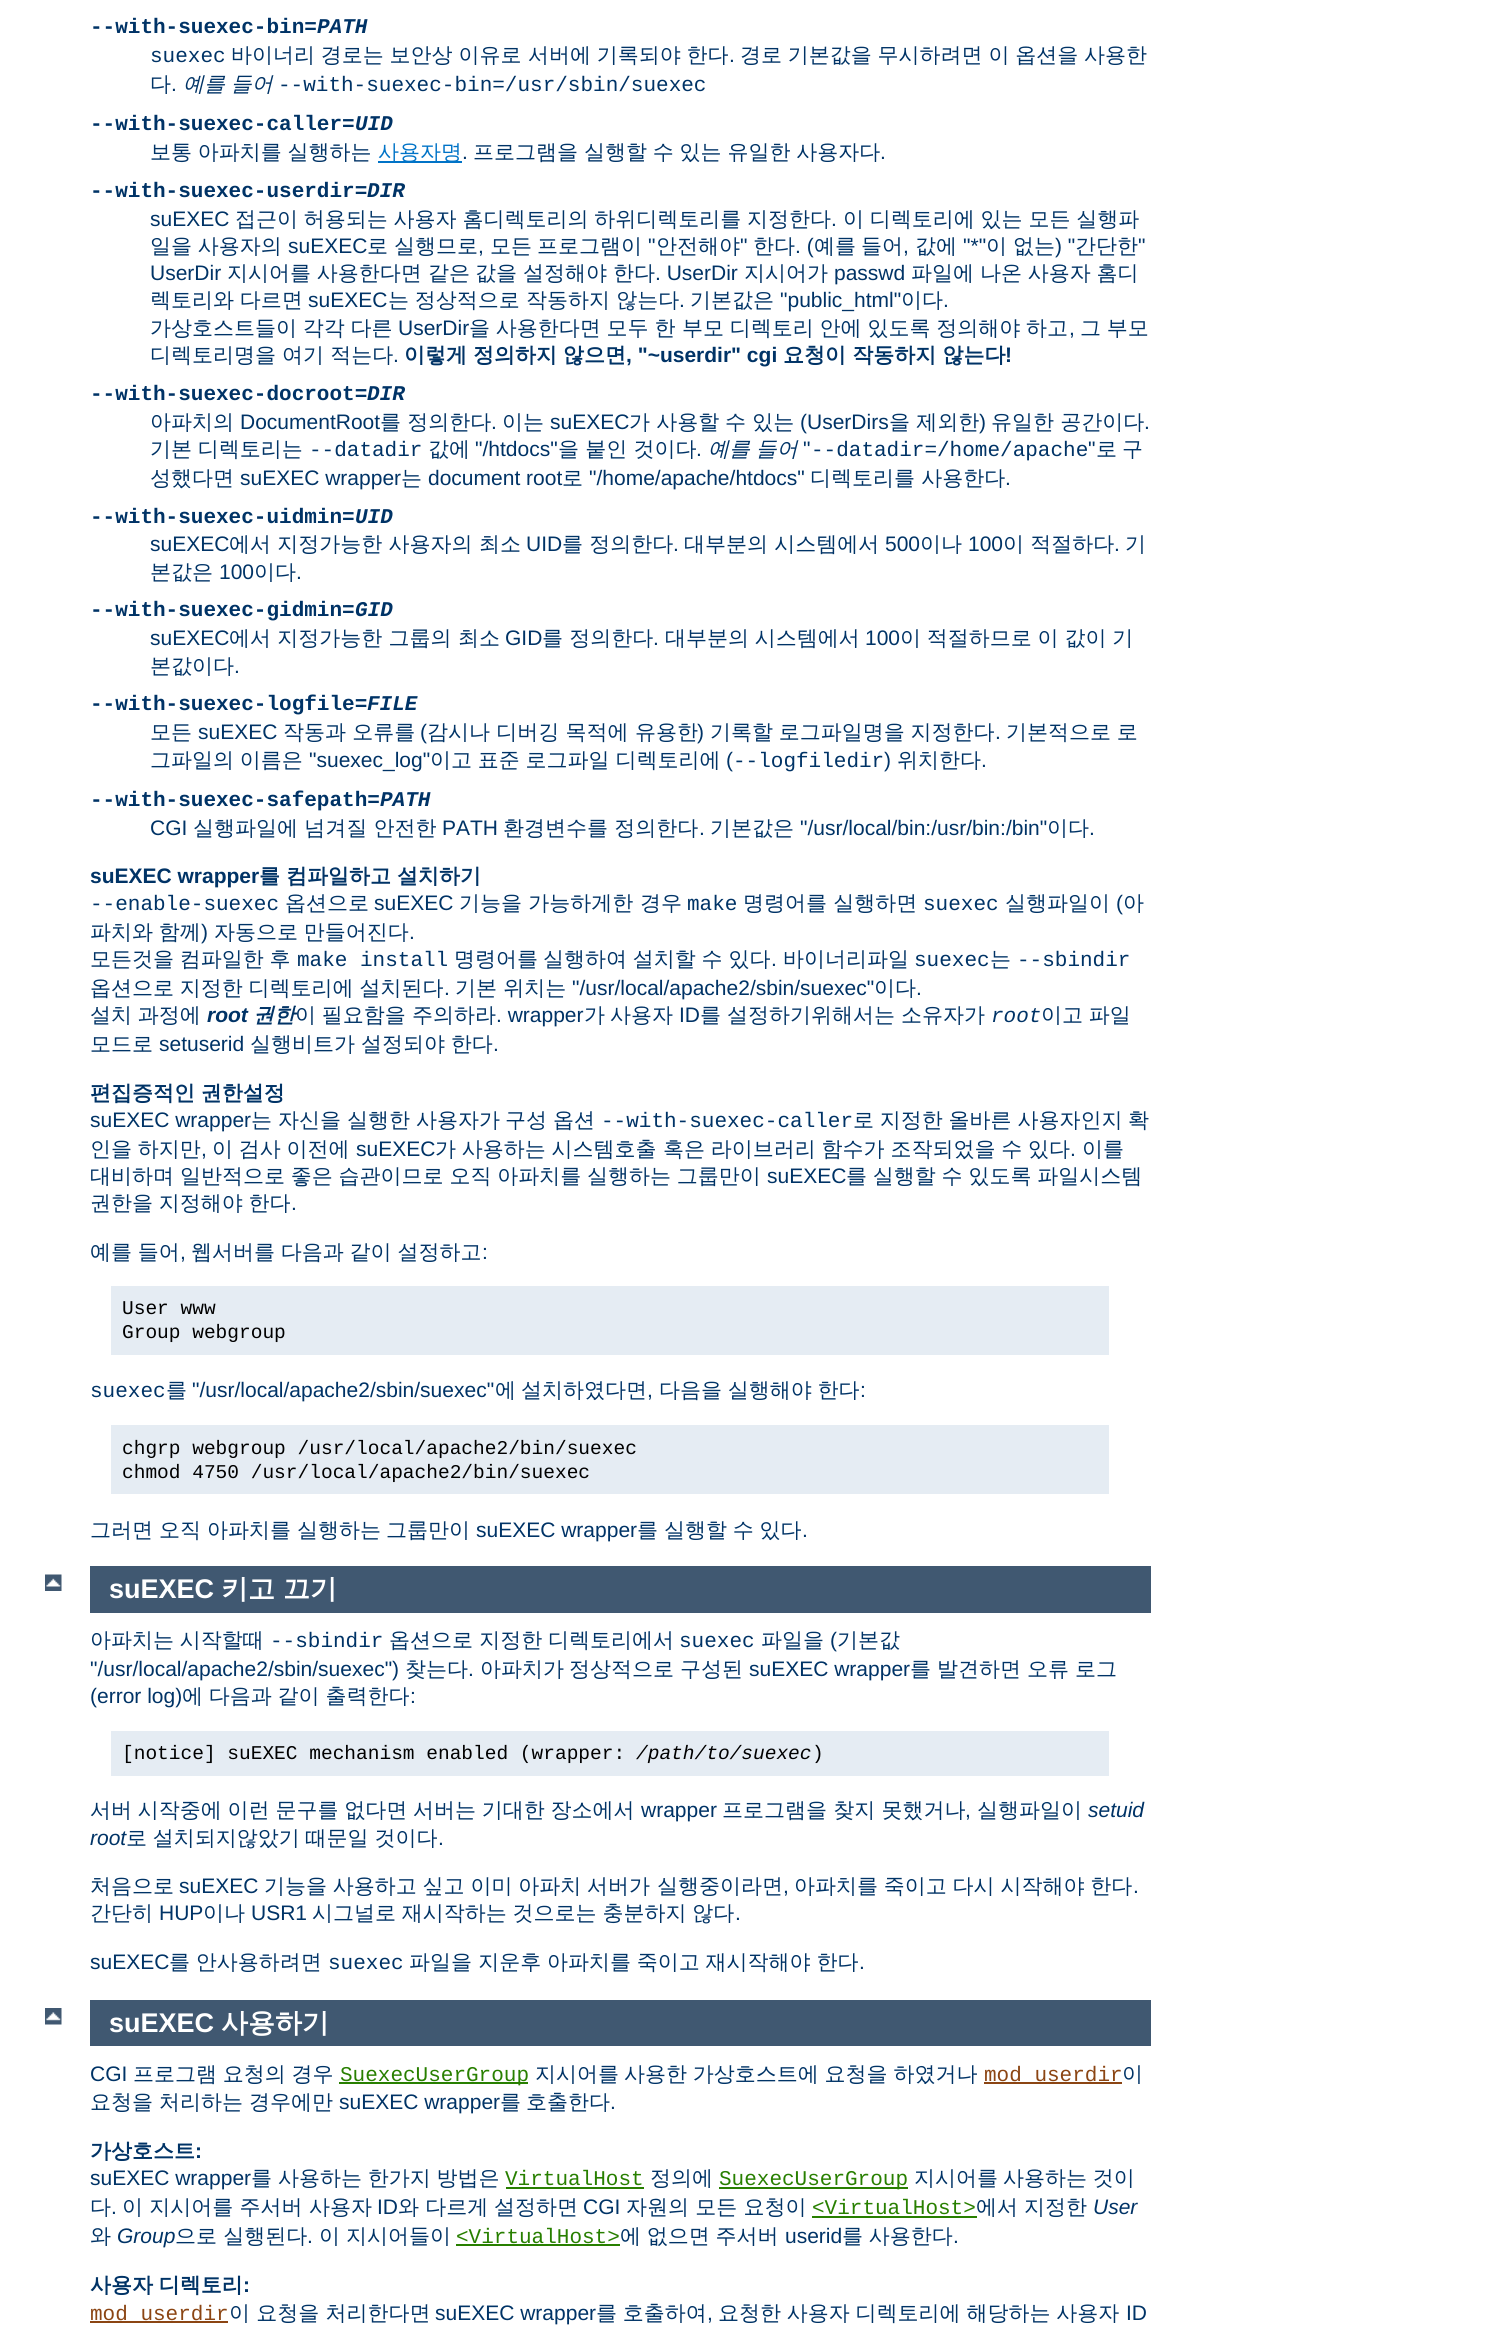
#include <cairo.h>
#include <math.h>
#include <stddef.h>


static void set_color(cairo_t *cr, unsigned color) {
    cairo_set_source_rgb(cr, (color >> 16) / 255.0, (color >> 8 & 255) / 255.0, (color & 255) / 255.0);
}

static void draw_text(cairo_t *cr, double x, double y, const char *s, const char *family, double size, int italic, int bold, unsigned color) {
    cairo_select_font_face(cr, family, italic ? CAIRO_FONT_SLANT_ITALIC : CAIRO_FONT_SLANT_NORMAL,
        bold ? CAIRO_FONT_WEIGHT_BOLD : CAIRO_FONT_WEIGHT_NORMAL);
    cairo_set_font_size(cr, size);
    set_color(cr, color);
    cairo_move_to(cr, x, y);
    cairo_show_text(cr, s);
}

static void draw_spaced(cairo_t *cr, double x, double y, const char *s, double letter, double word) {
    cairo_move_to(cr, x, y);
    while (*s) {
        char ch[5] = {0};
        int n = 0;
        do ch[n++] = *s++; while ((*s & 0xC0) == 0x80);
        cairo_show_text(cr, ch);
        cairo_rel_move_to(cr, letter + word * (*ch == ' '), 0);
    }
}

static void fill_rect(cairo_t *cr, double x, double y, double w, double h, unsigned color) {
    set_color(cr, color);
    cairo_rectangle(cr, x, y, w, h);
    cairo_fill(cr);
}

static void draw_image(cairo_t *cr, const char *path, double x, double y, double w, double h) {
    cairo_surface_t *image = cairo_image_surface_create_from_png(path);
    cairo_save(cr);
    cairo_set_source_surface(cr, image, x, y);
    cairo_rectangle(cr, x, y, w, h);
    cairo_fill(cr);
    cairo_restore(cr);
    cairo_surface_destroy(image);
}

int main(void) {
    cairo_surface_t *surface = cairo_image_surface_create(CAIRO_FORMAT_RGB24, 1489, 2334);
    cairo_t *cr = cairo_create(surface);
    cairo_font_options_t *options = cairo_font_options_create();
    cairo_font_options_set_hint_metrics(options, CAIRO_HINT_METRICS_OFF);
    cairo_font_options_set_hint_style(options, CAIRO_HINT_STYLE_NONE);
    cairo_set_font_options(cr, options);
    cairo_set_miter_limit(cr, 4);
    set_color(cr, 0xFFFFFF);
    cairo_paint(cr);
    draw_text(cr, 90, 33, "--with-suexec-bin=", "Liberation Mono", 21, 0, 1, 0x003366);
    draw_text(cr, 317, 33, "PATH", "Liberation Mono", 21, 1, 1, 0x003366);
    draw_text(cr, 150, 62, "suexec", "Liberation Mono", 21, 0, 0, 0x003366);
    cairo_select_font_face(cr, "WenQuanYi Zen Hei Medium", CAIRO_FONT_SLANT_NORMAL, CAIRO_FONT_WEIGHT_NORMAL);
    draw_spaced(cr, 231, 62, "바이너리 경로는 보안상 이유로", 0, -0.5);
    draw_spaced(cr, 528, 62, "서버에 기록되야 한다", 0, -0.5);
    draw_text(cr, 729, 62, ".", "Liberation Sans", 21, 0, 0, 0x003366);
    cairo_select_font_face(cr, "WenQuanYi Zen Hei Medium", CAIRO_FONT_SLANT_NORMAL, CAIRO_FONT_WEIGHT_NORMAL);
    draw_spaced(cr, 740, 62, "경로 기본값을 무시하려면 이 옵션을", 0, -0.5);
    draw_text(cr, 1084, 62, "사용한", "WenQuanYi Zen Hei Medium", 21, 0, 0, 0x003366);
    draw_text(cr, 150, 91, "다", "WenQuanYi Zen Hei Medium", 21, 0, 0, 0x003366);
    draw_text(cr, 171, 91, ".", "Liberation Sans", 21, 0, 0, 0x003366);
    cairo_select_font_face(cr, "WenQuanYi Zen Hei Medium", CAIRO_FONT_SLANT_ITALIC, CAIRO_FONT_WEIGHT_NORMAL);
    draw_spaced(cr, 183, 91, "예를 들어", 0, -0.5);
    draw_text(cr, 278, 91, "--with-suexec-bin=/usr/sbin/suexec", "Liberation Mono", 21, 0, 0, 0x003366);
    draw_text(cr, 90, 130, "--with-suexec-caller=", "Liberation Mono", 21, 0, 1, 0x003366);
    draw_text(cr, 355, 130, "UID", "Liberation Mono", 21, 1, 1, 0x003366);
    cairo_select_font_face(cr, "WenQuanYi Zen Hei Medium", CAIRO_FONT_SLANT_NORMAL, CAIRO_FONT_WEIGHT_NORMAL);
    draw_spaced(cr, 150, 159, "보통 아파치를 실행하는", 0, -0.5);
    fill_rect(cr, 378, 161, 84, 2, 0x0073C7);
    draw_text(cr, 378, 159, "사용자명", "WenQuanYi Zen Hei Medium", 21, 0, 0, 0x0073C7);
    draw_text(cr, 462, 159, ".", "Liberation Sans", 21, 0, 0, 0x003366);
    draw_text(cr, 473, 159, "프로그램을", "WenQuanYi Zen Hei Medium", 21, 0, 0, 0x003366);
    draw_spaced(cr, 584, 159, "실행할 수 있는 유일한 사용자다", 0, -0.5);
    draw_text(cr, 880, 159, ".", "Liberation Sans", 21, 0, 0, 0x003366);
    draw_text(cr, 90, 197, "--with-suexec-userdir=", "Liberation Mono", 21, 0, 1, 0x003366);
    draw_text(cr, 367, 197, "DIR", "Liberation Mono", 21, 1, 1, 0x003366);
    draw_text(cr, 150, 226, "suEXEC", "Liberation Sans", 21, 0, 0, 0x003366);
    cairo_select_font_face(cr, "WenQuanYi Zen Hei Medium", CAIRO_FONT_SLANT_NORMAL, CAIRO_FONT_WEIGHT_NORMAL);
    draw_spaced(cr, 235, 226, "접근이 허용되는 사용자 홈디렉토리의 하위디렉토리를", 0, -0.5);
    draw_text(cr, 747, 226, "지정한다", "WenQuanYi Zen Hei Medium", 21, 0, 0, 0x003366);
    draw_text(cr, 831, 226, ".", "Liberation Sans", 21, 0, 0, 0x003366);
    cairo_select_font_face(cr, "WenQuanYi Zen Hei Medium", CAIRO_FONT_SLANT_NORMAL, CAIRO_FONT_WEIGHT_NORMAL);
    draw_spaced(cr, 843, 226, "이 디렉토리에 있는 모든 실행파", 0, -0.5);
    draw_spaced(cr, 150, 253, "일을 사용자의", 0, -0.5);
    draw_text(cr, 288, 253, "suEXEC", "Liberation Sans", 21, 0, 0, 0x003366);
    draw_text(cr, 367, 253, "로", "WenQuanYi Zen Hei Medium", 21, 0, 0, 0x003366);
    draw_text(cr, 394, 253, "실행므로", "WenQuanYi Zen Hei Medium", 21, 0, 0, 0x003366);
    draw_text(cr, 490, 253, "모든", "WenQuanYi Zen Hei Medium", 21, 0, 0, 0x003366);
    draw_text(cr, 537, 253, "프로그램이", "WenQuanYi Zen Hei Medium", 21, 0, 0, 0x003366);
    draw_text(cr, 648, 253, "\"", "Liberation Sans", 21, 0, 0, 0x003366);
    draw_text(cr, 656, 253, "안전해야", "WenQuanYi Zen Hei Medium", 21, 0, 0, 0x003366);
    draw_text(cr, 740, 253, "\"", "Liberation Sans", 21, 0, 0, 0x003366);
    draw_text(cr, 753, 253, "한다", "WenQuanYi Zen Hei Medium", 21, 0, 0, 0x003366);
    draw_text(cr, 795, 253, ". (", "Liberation Sans", 21, 0, 0, 0x003366);
    draw_text(cr, 814, 253, "예를", "WenQuanYi Zen Hei Medium", 21, 0, 0, 0x003366);
    draw_text(cr, 861, 253, "들어", "WenQuanYi Zen Hei Medium", 21, 0, 0, 0x003366);
    draw_text(cr, 915, 253, "값에", "WenQuanYi Zen Hei Medium", 21, 0, 0, 0x003366);
    draw_text(cr, 963, 253, "\"*\"", "Liberation Sans", 21, 0, 0, 0x003366);
    draw_text(cr, 986, 253, "이", "WenQuanYi Zen Hei Medium", 21, 0, 0, 0x003366);
    draw_text(cr, 1013, 253, "없는", "WenQuanYi Zen Hei Medium", 21, 0, 0, 0x003366);
    draw_text(cr, 1055, 253, ") \"", "Liberation Sans", 21, 0, 0, 0x003366);
    draw_text(cr, 1075, 253, "간단한", "WenQuanYi Zen Hei Medium", 21, 0, 0, 0x003366);
    draw_text(cr, 1138, 253, "\"", "Liberation Sans", 21, 0, 0, 0x003366);
    draw_text(cr, 478, 253, ",", "Liberation Sans", 21, 0, 0, 0x003366);
    draw_text(cr, 903, 253, ",", "Liberation Sans", 21, 0, 0, 0x003366);
    draw_text(cr, 150, 280, "UserDir", "Liberation Sans", 21, 0, 0, 0x003366);
    cairo_select_font_face(cr, "WenQuanYi Zen Hei Medium", CAIRO_FONT_SLANT_NORMAL, CAIRO_FONT_WEIGHT_NORMAL);
    draw_spaced(cr, 227, 280, "지시어를 사용한다면", 0, -0.5);
    draw_text(cr, 428, 280, "같은", "WenQuanYi Zen Hei Medium", 21, 0, 0, 0x003366);
    draw_text(cr, 475, 280, "값을", "WenQuanYi Zen Hei Medium", 21, 0, 0, 0x003366);
    draw_text(cr, 523, 280, "설정해야", "WenQuanYi Zen Hei Medium", 21, 0, 0, 0x003366);
    draw_text(cr, 613, 280, "한다", "WenQuanYi Zen Hei Medium", 21, 0, 0, 0x003366);
    draw_text(cr, 655, 280, ". UserDir", "Liberation Sans", 21, 0, 0, 0x003366);
    draw_text(cr, 744, 280, "지시어가", "WenQuanYi Zen Hei Medium", 21, 0, 0, 0x003366);
    draw_text(cr, 834, 280, "passwd", "Liberation Sans", 21, 0, 0, 0x003366);
    draw_text(cr, 911, 280, "파일에", "WenQuanYi Zen Hei Medium", 21, 0, 0, 0x003366);
    draw_spaced(cr, 980, 280, "나온 사용자 홈디", 0, -0.5);
    draw_spaced(cr, 150, 307, "렉토리와 다르면", 0, -0.5);
    draw_text(cr, 308, 307, "suEXEC", "Liberation Sans", 21, 0, 0, 0x003366);
    cairo_select_font_face(cr, "WenQuanYi Zen Hei Medium", CAIRO_FONT_SLANT_NORMAL, CAIRO_FONT_WEIGHT_NORMAL);
    draw_spaced(cr, 388, 307, "는 정상적으로", 0, -0.5);
    draw_text(cr, 526, 307, "작동하지 않는다", "WenQuanYi Zen Hei Medium", 21, 0, 0, 0x003366);
    draw_text(cr, 679, 307, ".", "Liberation Sans", 21, 0, 0, 0x003366);
    draw_text(cr, 690, 307, "기본값은", "WenQuanYi Zen Hei Medium", 21, 0, 0, 0x003366);
    draw_text(cr, 780, 307, "\"public_html\"", "Liberation Sans", 21, 0, 0, 0x003366);
    draw_text(cr, 901, 307, "이다", "WenQuanYi Zen Hei Medium", 21, 0, 0, 0x003366);
    draw_text(cr, 943, 307, ".", "Liberation Sans", 21, 0, 0, 0x003366);
    cairo_select_font_face(cr, "WenQuanYi Zen Hei Medium", CAIRO_FONT_SLANT_NORMAL, CAIRO_FONT_WEIGHT_NORMAL);
    draw_spaced(cr, 150, 335, "가상호스트들이 각각 다른", 0, -0.5);
    draw_text(cr, 398, 335, "UserDir", "Liberation Sans", 21, 0, 0, 0x003366);
    cairo_select_font_face(cr, "WenQuanYi Zen Hei Medium", CAIRO_FONT_SLANT_NORMAL, CAIRO_FONT_WEIGHT_NORMAL);
    draw_spaced(cr, 469, 335, "을 사용한다면 모두 한", 0, -0.5);
    draw_spaced(cr, 682, 335, "부모 디렉토리 안에 있도록 정의해야 하고", 0, -0.5);
    draw_text(cr, 1069, 335, ",", "Liberation Sans", 21, 0, 0, 0x003366);
    cairo_select_font_face(cr, "WenQuanYi Zen Hei Medium", CAIRO_FONT_SLANT_NORMAL, CAIRO_FONT_WEIGHT_NORMAL);
    draw_spaced(cr, 1080, 335, "그 부모", 0, -0.5);
    draw_text(cr, 150, 362, "디렉토리명을", "WenQuanYi Zen Hei Medium", 21, 0, 0, 0x003366);
    draw_text(cr, 282, 362, "여기 적는다", "WenQuanYi Zen Hei Medium", 21, 0, 0, 0x003366);
    draw_text(cr, 393, 362, ".", "Liberation Sans", 21, 0, 0, 0x003366);
    draw_text(cr, 404, 362, "이렇게", "WenQuanYi Zen Hei", 21, 0, 1, 0x003366);
    draw_text(cr, 473, 362, "정의하지", "WenQuanYi Zen Hei", 21, 0, 1, 0x003366);
    draw_text(cr, 563, 362, "않으면", "WenQuanYi Zen Hei", 21, 0, 1, 0x003366);
    draw_text(cr, 626, 362, ", \"~userdir\" cgi", "Liberation Sans", 21, 0, 1, 0x003366);
    draw_text(cr, 783, 362, "요청이 작동하지 않는다", "WenQuanYi Zen Hei", 21, 0, 1, 0x003366);
    draw_text(cr, 1005, 362, "!", "Liberation Sans", 21, 0, 1, 0x003366);
    draw_text(cr, 90, 400, "--with-suexec-docroot=", "Liberation Mono", 21, 0, 1, 0x003366);
    draw_text(cr, 367, 400, "DIR", "Liberation Mono", 21, 1, 1, 0x003366);
    draw_text(cr, 150, 429, "아파치의", "WenQuanYi Zen Hei Medium", 21, 0, 0, 0x003366);
    draw_text(cr, 240, 429, "DocumentRoot", "Liberation Sans", 21, 0, 0, 0x003366);
    draw_text(cr, 380, 429, "를 정의한다", "WenQuanYi Zen Hei Medium", 21, 0, 0, 0x003366);
    draw_text(cr, 491, 429, ".", "Liberation Sans", 21, 0, 0, 0x003366);
    draw_text(cr, 502, 429, "이는", "WenQuanYi Zen Hei Medium", 21, 0, 0, 0x003366);
    draw_text(cr, 550, 429, "suEXEC", "Liberation Sans", 21, 0, 0, 0x003366);
    draw_text(cr, 629, 429, "가 사용할", "WenQuanYi Zen Hei Medium", 21, 0, 0, 0x003366);
    draw_text(cr, 725, 429, "수 있는", "WenQuanYi Zen Hei Medium", 21, 0, 0, 0x003366);
    draw_text(cr, 800, 429, "(UserDirs", "Liberation Sans", 21, 0, 0, 0x003366);
    draw_text(cr, 889, 429, "을 제외한", "WenQuanYi Zen Hei Medium", 21, 0, 0, 0x003366);
    draw_text(cr, 979, 429, ")", "Liberation Sans", 21, 0, 0, 0x003366);
    draw_text(cr, 991, 429, "유일한 공간이다", "WenQuanYi Zen Hei Medium", 21, 0, 0, 0x003366);
    draw_text(cr, 1144, 429, ".", "Liberation Sans", 21, 0, 0, 0x003366);
    cairo_select_font_face(cr, "WenQuanYi Zen Hei Medium", CAIRO_FONT_SLANT_NORMAL, CAIRO_FONT_WEIGHT_NORMAL);
    draw_spaced(cr, 150, 456, "기본 디렉토리는", 0, -0.5);
    draw_text(cr, 309, 456, "--datadir", "Liberation Mono", 21, 0, 0, 0x003366);
    draw_text(cr, 428, 456, "값에", "WenQuanYi Zen Hei Medium", 21, 0, 0, 0x003366);
    draw_text(cr, 475, 456, "\"/htdocs\"", "Liberation Sans", 21, 0, 0, 0x003366);
    draw_text(cr, 558, 456, "을 붙인 것이다", "WenQuanYi Zen Hei Medium", 21, 0, 0, 0x003366);
    draw_text(cr, 696, 456, ".", "Liberation Sans", 21, 0, 0, 0x003366);
    cairo_select_font_face(cr, "WenQuanYi Zen Hei Medium", CAIRO_FONT_SLANT_ITALIC, CAIRO_FONT_WEIGHT_NORMAL);
    draw_spaced(cr, 708, 456, "예를 들어", 0, -0.5);
    draw_text(cr, 803, 456, "\"", "Liberation Sans", 21, 0, 0, 0x003366);
    draw_text(cr, 811, 456, "--datadir=/home/apache", "Liberation Mono", 21, 0, 0, 0x003366);
    draw_text(cr, 1088, 456, "\"", "Liberation Sans", 21, 0, 0, 0x003366);
    draw_text(cr, 1096, 456, "로", "WenQuanYi Zen Hei Medium", 21, 0, 0, 0x003366);
    draw_text(cr, 1122, 456, "구", "WenQuanYi Zen Hei Medium", 21, 0, 0, 0x003366);
    draw_text(cr, 150, 485, "성했다면", "WenQuanYi Zen Hei Medium", 21, 0, 0, 0x003366);
    draw_text(cr, 240, 485, "suEXEC wrapper", "Liberation Sans", 21, 0, 0, 0x003366);
    draw_text(cr, 401, 485, "는", "WenQuanYi Zen Hei Medium", 21, 0, 0, 0x003366);
    draw_text(cr, 428, 485, "document root", "Liberation Sans", 21, 0, 0, 0x003366);
    draw_text(cr, 562, 485, "로", "WenQuanYi Zen Hei Medium", 21, 0, 0, 0x003366);
    draw_text(cr, 589, 485, "\"/home/apache/htdocs\"", "Liberation Sans", 21, 0, 0, 0x003366);
    draw_text(cr, 810, 485, "디렉토리를 사용한다", "WenQuanYi Zen Hei Medium", 21, 0, 0, 0x003366);
    draw_text(cr, 1005, 485, ".", "Liberation Sans", 21, 0, 0, 0x003366);
    draw_text(cr, 90, 523, "--with-suexec-uidmin=", "Liberation Mono", 21, 0, 1, 0x003366);
    draw_text(cr, 355, 523, "UID", "Liberation Mono", 21, 1, 1, 0x003366);
    draw_text(cr, 150, 551, "suEXEC", "Liberation Sans", 21, 0, 0, 0x003366);
    draw_text(cr, 229, 551, "에서 지정가능한 사용자의 최소", "WenQuanYi Zen Hei Medium", 21, 0, 0, 0x003366);
    draw_text(cr, 526, 551, "UID", "Liberation Sans", 21, 0, 0, 0x003366);
    draw_text(cr, 562, 551, "를 정의한다", "WenQuanYi Zen Hei Medium", 21, 0, 0, 0x003366);
    draw_text(cr, 673, 551, ".", "Liberation Sans", 21, 0, 0, 0x003366);
    draw_text(cr, 684, 551, "대부분의 시스템에서", "WenQuanYi Zen Hei Medium", 21, 0, 0, 0x003366);
    draw_text(cr, 885, 551, "500", "Liberation Sans", 21, 0, 0, 0x003366);
    draw_text(cr, 920, 551, "이나", "WenQuanYi Zen Hei Medium", 21, 0, 0, 0x003366);
    draw_text(cr, 968, 551, "100", "Liberation Sans", 21, 0, 0, 0x003366);
    draw_text(cr, 1003, 551, "이 적절하다", "WenQuanYi Zen Hei Medium", 21, 0, 0, 0x003366);
    draw_text(cr, 1114, 551, ".", "Liberation Sans", 21, 0, 0, 0x003366);
    draw_text(cr, 1125, 551, "기", "WenQuanYi Zen Hei Medium", 21, 0, 0, 0x003366);
    draw_text(cr, 150, 579, "본값은", "WenQuanYi Zen Hei Medium", 21, 0, 0, 0x003366);
    draw_text(cr, 219, 579, "100", "Liberation Sans", 21, 0, 0, 0x003366);
    draw_text(cr, 254, 579, "이다", "WenQuanYi Zen Hei Medium", 21, 0, 0, 0x003366);
    draw_text(cr, 296, 579, ".", "Liberation Sans", 21, 0, 0, 0x003366);
    draw_text(cr, 90, 616, "--with-suexec-gidmin=", "Liberation Mono", 21, 0, 1, 0x003366);
    draw_text(cr, 355, 616, "GID", "Liberation Mono", 21, 1, 1, 0x003366);
    draw_text(cr, 150, 645, "suEXEC", "Liberation Sans", 21, 0, 0, 0x003366);
    draw_text(cr, 229, 645, "에서 지정가능한 그룹의 최소", "WenQuanYi Zen Hei Medium", 21, 0, 0, 0x003366);
    draw_text(cr, 505, 645, "GID", "Liberation Sans", 21, 0, 0, 0x003366);
    draw_text(cr, 542, 645, "를 정의한다", "WenQuanYi Zen Hei Medium", 21, 0, 0, 0x003366);
    draw_text(cr, 653, 645, ".", "Liberation Sans", 21, 0, 0, 0x003366);
    cairo_select_font_face(cr, "WenQuanYi Zen Hei Medium", CAIRO_FONT_SLANT_NORMAL, CAIRO_FONT_WEIGHT_NORMAL);
    draw_spaced(cr, 665, 645, "대부분의 시스템에서", 0, -0.5);
    draw_text(cr, 865, 645, "100", "Liberation Sans", 21, 0, 0, 0x003366);
    cairo_select_font_face(cr, "WenQuanYi Zen Hei Medium", CAIRO_FONT_SLANT_NORMAL, CAIRO_FONT_WEIGHT_NORMAL);
    draw_spaced(cr, 900, 645, "이 적절하므로 이 값이 기", 0, -0.5);
    draw_text(cr, 150, 673, "본값이다", "WenQuanYi Zen Hei Medium", 21, 0, 0, 0x003366);
    draw_text(cr, 234, 673, ".", "Liberation Sans", 21, 0, 0, 0x003366);
    draw_text(cr, 90, 710, "--with-suexec-logfile=", "Liberation Mono", 21, 0, 1, 0x003366);
    draw_text(cr, 367, 710, "FILE", "Liberation Mono", 21, 1, 1, 0x003366);
    draw_text(cr, 150, 739, "모든", "WenQuanYi Zen Hei Medium", 21, 0, 0, 0x003366);
    draw_text(cr, 198, 739, "suEXEC", "Liberation Sans", 21, 0, 0, 0x003366);
    draw_text(cr, 283, 739, "작동과 오류를", "WenQuanYi Zen Hei Medium", 21, 0, 0, 0x003366);
    draw_text(cr, 420, 739, "(", "Liberation Sans", 21, 0, 0, 0x003366);
    draw_text(cr, 427, 739, "감시나 디버깅 목적에 유용한", "WenQuanYi Zen Hei Medium", 21, 0, 0, 0x003366);
    draw_text(cr, 697, 739, ")", "Liberation Sans", 21, 0, 0, 0x003366);
    cairo_select_font_face(cr, "WenQuanYi Zen Hei Medium", CAIRO_FONT_SLANT_NORMAL, CAIRO_FONT_WEIGHT_NORMAL);
    draw_spaced(cr, 710, 739, "기록할 로그파일명을 지정한다", 0, -0.5);
    draw_text(cr, 995, 739, ".", "Liberation Sans", 21, 0, 0, 0x003366);
    cairo_select_font_face(cr, "WenQuanYi Zen Hei Medium", CAIRO_FONT_SLANT_NORMAL, CAIRO_FONT_WEIGHT_NORMAL);
    draw_spaced(cr, 1006, 739, "기본적으로 로", 0, -0.5);
    draw_spaced(cr, 150, 767, "그파일의 이름은", 0, -0.5);
    draw_text(cr, 309, 767, "\"suexec_log\"", "Liberation Sans", 21, 0, 0, 0x003366);
    cairo_select_font_face(cr, "WenQuanYi Zen Hei Medium", CAIRO_FONT_SLANT_NORMAL, CAIRO_FONT_WEIGHT_NORMAL);
    draw_spaced(cr, 430, 767, "이고 표준 로그파일 디렉토리에", 0, -0.5);
    draw_text(cr, 726, 767, "(", "Liberation Sans", 21, 0, 0, 0x003366);
    draw_text(cr, 733, 767, "--logfiledir", "Liberation Mono", 21, 0, 0, 0x003366);
    draw_text(cr, 884, 767, ")", "Liberation Sans", 21, 0, 0, 0x003366);
    draw_text(cr, 897, 767, "위치한다", "WenQuanYi Zen Hei Medium", 21, 0, 0, 0x003366);
    draw_text(cr, 981, 767, ".", "Liberation Sans", 21, 0, 0, 0x003366);
    draw_text(cr, 90, 806, "--with-suexec-safepath=", "Liberation Mono", 21, 0, 1, 0x003366);
    draw_text(cr, 380, 806, "PATH", "Liberation Mono", 21, 1, 1, 0x003366);
    draw_text(cr, 150, 835, "CGI", "Liberation Sans", 21, 0, 0, 0x003366);
    draw_text(cr, 193, 835, "실행파일에 넘겨질 안전한", "WenQuanYi Zen Hei Medium", 21, 0, 0, 0x003366);
    draw_text(cr, 442, 835, "PATH", "Liberation Sans", 21, 0, 0, 0x003366);
    draw_text(cr, 503, 835, "환경변수를 정의한다", "WenQuanYi Zen Hei Medium", 21, 0, 0, 0x003366);
    draw_text(cr, 699, 835, ".", "Liberation Sans", 21, 0, 0, 0x003366);
    draw_text(cr, 710, 835, "기본값은", "WenQuanYi Zen Hei Medium", 21, 0, 0, 0x003366);
    draw_text(cr, 800, 835, "\"/usr/local/bin:/usr/bin:/bin\"", "Liberation Sans", 21, 0, 0, 0x003366);
    draw_text(cr, 1047, 835, "이다", "WenQuanYi Zen Hei Medium", 21, 0, 0, 0x003366);
    draw_text(cr, 1089, 835, ".", "Liberation Sans", 21, 0, 0, 0x003366);
    draw_text(cr, 90, 883, "suEXEC wrapper", "Liberation Sans", 21, 0, 1, 0x003366);
    draw_text(cr, 259, 883, "를", "WenQuanYi Zen Hei", 21, 0, 1, 0x003366);
    draw_text(cr, 286, 883, "컴파일하고", "WenQuanYi Zen Hei", 21, 0, 1, 0x003366);
    draw_text(cr, 397, 883, "설치하기", "WenQuanYi Zen Hei", 21, 0, 1, 0x003366);
    draw_text(cr, 90, 910, "--enable-suexec", "Liberation Mono", 21, 0, 0, 0x003366);
    draw_text(cr, 285, 910, "옵션으로", "WenQuanYi Zen Hei Medium", 21, 0, 0, 0x003366);
    draw_text(cr, 374, 910, "suEXEC", "Liberation Sans", 21, 0, 0, 0x003366);
    draw_text(cr, 459, 910, "기능을 가능하게한", "WenQuanYi Zen Hei Medium", 21, 0, 0, 0x003366);
    draw_text(cr, 640, 910, "경우", "WenQuanYi Zen Hei Medium", 21, 0, 0, 0x003366);
    draw_text(cr, 687, 910, "make", "Liberation Mono", 21, 0, 0, 0x003366);
    draw_text(cr, 743, 910, "명령어를 실행하면", "WenQuanYi Zen Hei Medium", 21, 0, 0, 0x003366);
    draw_text(cr, 923, 910, "suexec", "Liberation Mono", 21, 0, 0, 0x003366);
    draw_text(cr, 1005, 910, "실행파일이", "WenQuanYi Zen Hei Medium", 21, 0, 0, 0x003366);
    draw_text(cr, 1116, 910, "(", "Liberation Sans", 21, 0, 0, 0x003366);
    draw_text(cr, 1123, 910, "아", "WenQuanYi Zen Hei Medium", 21, 0, 0, 0x003366);
    draw_spaced(cr, 90, 939, "파치와 함께", 0, -0.5);
    draw_text(cr, 201, 939, ")", "Liberation Sans", 21, 0, 0, 0x003366);
    cairo_select_font_face(cr, "WenQuanYi Zen Hei Medium", CAIRO_FONT_SLANT_NORMAL, CAIRO_FONT_WEIGHT_NORMAL);
    draw_spaced(cr, 214, 939, "자동으로 만들어진다", 0, -0.5);
    draw_text(cr, 409, 939, ".", "Liberation Sans", 21, 0, 0, 0x003366);
    cairo_select_font_face(cr, "WenQuanYi Zen Hei Medium", CAIRO_FONT_SLANT_NORMAL, CAIRO_FONT_WEIGHT_NORMAL);
    draw_spaced(cr, 90, 966, "모든것을 컴파일한 후", 0, -0.5);
    draw_text(cr, 297, 966, "make install", "Liberation Mono", 21, 0, 0, 0x003366);
    draw_text(cr, 454, 966, "명령어를", "WenQuanYi Zen Hei Medium", 21, 0, 0, 0x003366);
    draw_spaced(cr, 543, 966, "실행하여 설치할 수 있다", 0, -0.5);
    draw_text(cr, 771, 966, ".", "Liberation Sans", 21, 0, 0, 0x003366);
    draw_text(cr, 783, 966, "바이너리파일", "WenQuanYi Zen Hei Medium", 21, 0, 0, 0x003366);
    draw_text(cr, 914, 966, "suexec", "Liberation Mono", 21, 0, 0, 0x003366);
    draw_text(cr, 990, 966, "는", "WenQuanYi Zen Hei Medium", 21, 0, 0, 0x003366);
    draw_text(cr, 1017, 966, "--sbindir", "Liberation Mono", 21, 0, 0, 0x003366);
    cairo_select_font_face(cr, "WenQuanYi Zen Hei Medium", CAIRO_FONT_SLANT_NORMAL, CAIRO_FONT_WEIGHT_NORMAL);
    draw_spaced(cr, 90, 995, "옵션으로 지정한 디렉토리에 설치된다", 0, -0.5);
    draw_text(cr, 444, 995, ".", "Liberation Sans", 21, 0, 0, 0x003366);
    draw_text(cr, 455, 995, "기본 위치는", "WenQuanYi Zen Hei Medium", 21, 0, 0, 0x003366);
    draw_text(cr, 572, 995, "\"/usr/local/apache2/sbin/suexec\"", "Liberation Sans", 21, 0, 0, 0x003366);
    draw_text(cr, 874, 995, "이다", "WenQuanYi Zen Hei Medium", 21, 0, 0, 0x003366);
    draw_text(cr, 916, 995, ".", "Liberation Sans", 21, 0, 0, 0x003366);
    cairo_select_font_face(cr, "WenQuanYi Zen Hei Medium", CAIRO_FONT_SLANT_NORMAL, CAIRO_FONT_WEIGHT_NORMAL);
    draw_spaced(cr, 90, 1022, "설치 과정에", 0, -0.5);
    draw_text(cr, 207, 1022, "root", "Liberation Sans", 21, 1, 1, 0x003366);
    draw_text(cr, 253, 1022, "권한", "WenQuanYi Zen Hei", 21, 1, 1, 0x003366);
    cairo_select_font_face(cr, "WenQuanYi Zen Hei Medium", CAIRO_FONT_SLANT_NORMAL, CAIRO_FONT_WEIGHT_NORMAL);
    draw_spaced(cr, 295, 1022, "이 필요함을", 0, -0.5);
    draw_text(cr, 412, 1022, "주의하라", "WenQuanYi Zen Hei Medium", 21, 0, 0, 0x003366);
    draw_text(cr, 496, 1022, ". wrapper", "Liberation Sans", 21, 0, 0, 0x003366);
    draw_text(cr, 584, 1022, "가", "WenQuanYi Zen Hei Medium", 21, 0, 0, 0x003366);
    draw_text(cr, 610, 1022, "사용자", "WenQuanYi Zen Hei Medium", 21, 0, 0, 0x003366);
    draw_text(cr, 679, 1022, "ID", "Liberation Sans", 21, 0, 0, 0x003366);
    draw_text(cr, 700, 1022, "를", "WenQuanYi Zen Hei Medium", 21, 0, 0, 0x003366);
    draw_text(cr, 727, 1022, "설정하기위해서는", "WenQuanYi Zen Hei Medium", 21, 0, 0, 0x003366);
    draw_text(cr, 901, 1022, "소유자가", "WenQuanYi Zen Hei Medium", 21, 0, 0, 0x003366);
    draw_text(cr, 991, 1022, "root", "Liberation Mono", 21, 1, 0, 0x003366);
    cairo_select_font_face(cr, "WenQuanYi Zen Hei Medium", CAIRO_FONT_SLANT_NORMAL, CAIRO_FONT_WEIGHT_NORMAL);
    draw_spaced(cr, 1041, 1022, "이고 파일", 0, -0.5);
    draw_text(cr, 90, 1051, "모드로", "WenQuanYi Zen Hei Medium", 21, 0, 0, 0x003366);
    draw_text(cr, 159, 1051, "setuserid", "Liberation Sans", 21, 0, 0, 0x003366);
    draw_text(cr, 250, 1051, "실행비트가", "WenQuanYi Zen Hei Medium", 21, 0, 0, 0x003366);
    draw_spaced(cr, 361, 1051, "설정되야 한다", 0, -0.5);
    draw_text(cr, 493, 1051, ".", "Liberation Sans", 21, 0, 0, 0x003366);
    cairo_select_font_face(cr, "WenQuanYi Zen Hei", CAIRO_FONT_SLANT_NORMAL, CAIRO_FONT_WEIGHT_BOLD);
    draw_spaced(cr, 90, 1100, "편집증적인 권한설정", 0, -0.5);
    draw_text(cr, 90, 1127, "suEXEC wrapper", "Liberation Sans", 21, 0, 0, 0x003366);
    draw_text(cr, 251, 1127, "는", "WenQuanYi Zen Hei Medium", 21, 0, 0, 0x003366);
    draw_text(cr, 278, 1127, "자신을", "WenQuanYi Zen Hei Medium", 21, 0, 0, 0x003366);
    draw_text(cr, 347, 1127, "실행한", "WenQuanYi Zen Hei Medium", 21, 0, 0, 0x003366);
    draw_text(cr, 416, 1127, "사용자가", "WenQuanYi Zen Hei Medium", 21, 0, 0, 0x003366);
    draw_text(cr, 505, 1127, "구성", "WenQuanYi Zen Hei Medium", 21, 0, 0, 0x003366);
    draw_text(cr, 553, 1127, "옵션", "WenQuanYi Zen Hei Medium", 21, 0, 0, 0x003366);
    draw_text(cr, 601, 1127, "--with-suexec-caller", "Liberation Mono", 21, 0, 0, 0x003366);
    cairo_select_font_face(cr, "WenQuanYi Zen Hei Medium", CAIRO_FONT_SLANT_NORMAL, CAIRO_FONT_WEIGHT_NORMAL);
    draw_spaced(cr, 853, 1127, "로 지정한 올바른 사용자인지", 0, -0.5);
    draw_text(cr, 1128, 1127, "확", "WenQuanYi Zen Hei Medium", 21, 0, 0, 0x003366);
    draw_spaced(cr, 90, 1156, "인을 하지만", 0, -0.5);
    draw_text(cr, 201, 1156, ",", "Liberation Sans", 21, 0, 0, 0x003366);
    cairo_select_font_face(cr, "WenQuanYi Zen Hei Medium", CAIRO_FONT_SLANT_NORMAL, CAIRO_FONT_WEIGHT_NORMAL);
    draw_spaced(cr, 212, 1156, "이 검사 이전에", 0, -0.5);
    draw_text(cr, 356, 1156, "suEXEC", "Liberation Sans", 21, 0, 0, 0x003366);
    cairo_select_font_face(cr, "WenQuanYi Zen Hei Medium", CAIRO_FONT_SLANT_NORMAL, CAIRO_FONT_WEIGHT_NORMAL);
    draw_spaced(cr, 435, 1156, "가 사용하는 시스템호출", 0, -0.5);
    draw_spaced(cr, 663, 1156, "혹은 라이브러리 함수가 조작되었을 수 있다", 0, -0.5);
    draw_text(cr, 1070, 1156, ".", "Liberation Sans", 21, 0, 0, 0x003366);
    draw_text(cr, 1082, 1156, "이를", "WenQuanYi Zen Hei Medium", 21, 0, 0, 0x003366);
    draw_text(cr, 90, 1183, "대비하며", "WenQuanYi Zen Hei Medium", 21, 0, 0, 0x003366);
    draw_spaced(cr, 180, 1183, "일반적으로 좋은 습관이므로 오직 아파치를 실행하는 그룹만이", 0, -0.5);
    draw_text(cr, 767, 1183, "suEXEC", "Liberation Sans", 21, 0, 0, 0x003366);
    cairo_select_font_face(cr, "WenQuanYi Zen Hei Medium", CAIRO_FONT_SLANT_NORMAL, CAIRO_FONT_WEIGHT_NORMAL);
    draw_spaced(cr, 846, 1183, "를 실행할 수 있도록 파일시스템", 0, -0.5);
    draw_spaced(cr, 90, 1210, "권한을 지정해야 한다", 0, -0.5);
    draw_text(cr, 291, 1210, ".", "Liberation Sans", 21, 0, 0, 0x003366);
    cairo_select_font_face(cr, "WenQuanYi Zen Hei Medium", CAIRO_FONT_SLANT_NORMAL, CAIRO_FONT_WEIGHT_NORMAL);
    draw_spaced(cr, 90, 1259, "예를 들어", 0, -0.5);
    draw_text(cr, 180, 1259, ",", "Liberation Sans", 21, 0, 0, 0x003366);
    cairo_select_font_face(cr, "WenQuanYi Zen Hei Medium", CAIRO_FONT_SLANT_NORMAL, CAIRO_FONT_WEIGHT_NORMAL);
    draw_spaced(cr, 191, 1259, "웹서버를 다음과 같이 설정하고", 0, -0.5);
    draw_text(cr, 482, 1259, ":", "Liberation Sans", 21, 0, 0, 0x003366);
    fill_rect(cr, 111, 1286, 998, 69, 0xE5ECF3);
    draw_text(cr, 122, 1314, "User www", "Liberation Mono", 19.5, 0, 0, 0x000000);
    draw_text(cr, 122, 1338, "Group webgroup", "Liberation Mono", 19.5, 0, 0, 0x000000);
    draw_text(cr, 90, 1397, "suexec", "Liberation Mono", 21, 0, 0, 0x003366);
    draw_text(cr, 166, 1397, "를", "WenQuanYi Zen Hei Medium", 21, 0, 0, 0x003366);
    draw_text(cr, 192, 1397, "\"/usr/local/apache2/sbin/suexec\"", "Liberation Sans", 21, 0, 0, 0x003366);
    draw_text(cr, 495, 1397, "에", "WenQuanYi Zen Hei Medium", 21, 0, 0, 0x003366);
    draw_text(cr, 521, 1397, "설치하였다면", "WenQuanYi Zen Hei Medium", 21, 0, 0, 0x003366);
    draw_text(cr, 647, 1397, ",", "Liberation Sans", 21, 0, 0, 0x003366);
    cairo_select_font_face(cr, "WenQuanYi Zen Hei Medium", CAIRO_FONT_SLANT_NORMAL, CAIRO_FONT_WEIGHT_NORMAL);
    draw_spaced(cr, 659, 1397, "다음을 실행해야 한다", 0, -0.5);
    draw_text(cr, 860, 1397, ":", "Liberation Sans", 21, 0, 0, 0x003366);
    fill_rect(cr, 111, 1425, 998, 69, 0xE5ECF3);
    draw_text(cr, 122, 1454, "chgrp webgroup /usr/local/apache2/bin/suexec", "Liberation Mono", 19.5, 0, 0, 0x000000);
    draw_text(cr, 122, 1478, "chmod 4750 /usr/local/apache2/bin/suexec", "Liberation Mono", 19.5, 0, 0, 0x000000);
    draw_text(cr, 90, 1537, "그러면", "WenQuanYi Zen Hei Medium", 21, 0, 0, 0x003366);
    draw_text(cr, 159, 1537, "오직", "WenQuanYi Zen Hei Medium", 21, 0, 0, 0x003366);
    draw_text(cr, 207, 1537, "아파치를", "WenQuanYi Zen Hei Medium", 21, 0, 0, 0x003366);
    draw_text(cr, 297, 1537, "실행하는", "WenQuanYi Zen Hei Medium", 21, 0, 0, 0x003366);
    draw_text(cr, 386, 1537, "그룹만이", "WenQuanYi Zen Hei Medium", 21, 0, 0, 0x003366);
    draw_text(cr, 476, 1537, "suEXEC wrapper", "Liberation Sans", 21, 0, 0, 0x003366);
    draw_text(cr, 637, 1537, "를", "WenQuanYi Zen Hei Medium", 21, 0, 0, 0x003366);
    draw_spaced(cr, 664, 1537, "실행할 수 있다", 0, -0.5);
    draw_text(cr, 802, 1537, ".", "Liberation Sans", 21, 0, 0, 0x003366);
    draw_image(cr, "assets/img1.png", 45, 1574, 17, 17);
    fill_rect(cr, 90, 1566, 1061, 47, 0x405871);
    draw_text(cr, 109, 1598, "suEXEC", "Liberation Sans", 27, 0, 1, 0xFFFFFF);
    draw_text(cr, 221, 1598, "키고 끄기", "WenQuanYi Zen Hei", 27, 0, 1, 0xFFFFFF);
    cairo_select_font_face(cr, "WenQuanYi Zen Hei Medium", CAIRO_FONT_SLANT_NORMAL, CAIRO_FONT_WEIGHT_NORMAL);
    cairo_set_font_size(cr, 21);
    set_color(cr, 0x003366);
    draw_spaced(cr, 90, 1647, "아파치는 시작할때", 0, -0.5);
    draw_text(cr, 270, 1647, "--sbindir", "Liberation Mono", 21, 0, 0, 0x003366);
    draw_text(cr, 389, 1647, "옵션으로 지정한", "WenQuanYi Zen Hei Medium", 21, 0, 0, 0x003366);
    draw_text(cr, 548, 1647, "디렉토리에서", "WenQuanYi Zen Hei Medium", 21, 0, 0, 0x003366);
    draw_text(cr, 679, 1647, "suexec", "Liberation Mono", 21, 0, 0, 0x003366);
    draw_text(cr, 761, 1647, "파일을", "WenQuanYi Zen Hei Medium", 21, 0, 0, 0x003366);
    draw_text(cr, 830, 1647, "(", "Liberation Sans", 21, 0, 0, 0x003366);
    draw_text(cr, 837, 1647, "기본값", "WenQuanYi Zen Hei Medium", 21, 0, 0, 0x003366);
    draw_text(cr, 90, 1676, "\"/usr/local/apache2/sbin/suexec\")", "Liberation Sans", 21, 0, 0, 0x003366);
    draw_text(cr, 405, 1676, "찾는다", "WenQuanYi Zen Hei Medium", 21, 0, 0, 0x003366);
    draw_text(cr, 468, 1676, ".", "Liberation Sans", 21, 0, 0, 0x003366);
    draw_text(cr, 480, 1676, "아파치가", "WenQuanYi Zen Hei Medium", 21, 0, 0, 0x003366);
    draw_text(cr, 569, 1676, "정상적으로", "WenQuanYi Zen Hei Medium", 21, 0, 0, 0x003366);
    draw_text(cr, 680, 1676, "구성된", "WenQuanYi Zen Hei Medium", 21, 0, 0, 0x003366);
    draw_text(cr, 749, 1676, "suEXEC wrapper", "Liberation Sans", 21, 0, 0, 0x003366);
    draw_text(cr, 910, 1676, "를", "WenQuanYi Zen Hei Medium", 21, 0, 0, 0x003366);
    draw_text(cr, 937, 1676, "발견하면", "WenQuanYi Zen Hei Medium", 21, 0, 0, 0x003366);
    draw_text(cr, 1027, 1676, "오류", "WenQuanYi Zen Hei Medium", 21, 0, 0, 0x003366);
    draw_text(cr, 1075, 1676, "로그", "WenQuanYi Zen Hei Medium", 21, 0, 0, 0x003366);
    draw_text(cr, 90, 1703, "(error log)", "Liberation Sans", 21, 0, 0, 0x003366);
    cairo_select_font_face(cr, "WenQuanYi Zen Hei Medium", CAIRO_FONT_SLANT_NORMAL, CAIRO_FONT_WEIGHT_NORMAL);
    draw_spaced(cr, 182, 1703, "에 다음과 같이 출력한다", 0, -0.5);
    draw_text(cr, 410, 1703, ":", "Liberation Sans", 21, 0, 0, 0x003366);
    fill_rect(cr, 111, 1731, 998, 45, 0xE5ECF3);
    draw_text(cr, 122, 1759, "[notice] suEXEC mechanism enabled (wrapper:", "Liberation Mono", 19.5, 0, 0, 0x000000);
    draw_text(cr, 636, 1759, "/path/to/suexec", "Liberation Mono", 19.5, 1, 0, 0x000000);
    draw_text(cr, 812, 1759, ")", "Liberation Mono", 19.5, 0, 0, 0x000000);
    cairo_select_font_face(cr, "WenQuanYi Zen Hei Medium", CAIRO_FONT_SLANT_NORMAL, CAIRO_FONT_WEIGHT_NORMAL);
    cairo_set_font_size(cr, 21);
    set_color(cr, 0x003366);
    draw_spaced(cr, 90, 1817, "서버 시작중에 이런 문구를 없다면 서버는 기대한 장소에서", 0, -0.5);
    draw_text(cr, 641, 1817, "wrapper", "Liberation Sans", 21, 0, 0, 0x003366);
    draw_text(cr, 722, 1817, "프로그램을 찾지 못했거나", "WenQuanYi Zen Hei Medium", 21, 0, 0, 0x003366);
    draw_text(cr, 965, 1817, ",", "Liberation Sans", 21, 0, 0, 0x003366);
    draw_text(cr, 977, 1817, "실행파일이", "WenQuanYi Zen Hei Medium", 21, 0, 0, 0x003366);
    draw_text(cr, 1088, 1817, "setuid", "Liberation Sans", 21, 1, 0, 0x003366);
    draw_text(cr, 90, 1845, "root", "Liberation Sans", 21, 1, 0, 0x003366);
    cairo_select_font_face(cr, "WenQuanYi Zen Hei Medium", CAIRO_FONT_SLANT_NORMAL, CAIRO_FONT_WEIGHT_NORMAL);
    draw_spaced(cr, 126, 1845, "로 설치되지않았기 때문일 것이다", 0, -0.5);
    draw_text(cr, 438, 1845, ".", "Liberation Sans", 21, 0, 0, 0x003366);
    draw_text(cr, 90, 1893, "처음으로", "WenQuanYi Zen Hei Medium", 21, 0, 0, 0x003366);
    draw_text(cr, 179, 1893, "suEXEC", "Liberation Sans", 21, 0, 0, 0x003366);
    cairo_select_font_face(cr, "WenQuanYi Zen Hei Medium", CAIRO_FONT_SLANT_NORMAL, CAIRO_FONT_WEIGHT_NORMAL);
    draw_spaced(cr, 264, 1893, "기능을 사용하고 싶고 이미 아파치 서버가", 0, -0.5);
    draw_text(cr, 657, 1893, "실행중이라면", "WenQuanYi Zen Hei Medium", 21, 0, 0, 0x003366);
    draw_text(cr, 783, 1893, ",", "Liberation Sans", 21, 0, 0, 0x003366);
    cairo_select_font_face(cr, "WenQuanYi Zen Hei Medium", CAIRO_FONT_SLANT_NORMAL, CAIRO_FONT_WEIGHT_NORMAL);
    draw_spaced(cr, 794, 1893, "아파치를 죽이고 다시 시작해야 한다", 0, -0.5);
    draw_text(cr, 1133, 1893, ".", "Liberation Sans", 21, 0, 0, 0x003366);
    draw_text(cr, 90, 1920, "간단히", "WenQuanYi Zen Hei Medium", 21, 0, 0, 0x003366);
    draw_text(cr, 159, 1920, "HUP", "Liberation Sans", 21, 0, 0, 0x003366);
    draw_text(cr, 203, 1920, "이나", "WenQuanYi Zen Hei Medium", 21, 0, 0, 0x003366);
    draw_text(cr, 251, 1920, "USR1", "Liberation Sans", 21, 0, 0, 0x003366);
    cairo_select_font_face(cr, "WenQuanYi Zen Hei Medium", CAIRO_FONT_SLANT_NORMAL, CAIRO_FONT_WEIGHT_NORMAL);
    draw_spaced(cr, 312, 1920, "시그널로 재시작하는 것으로는 충분하지 않다", 0, -0.5);
    draw_text(cr, 735, 1920, ".", "Liberation Sans", 21, 0, 0, 0x003366);
    draw_text(cr, 90, 1969, "suEXEC", "Liberation Sans", 21, 0, 0, 0x003366);
    cairo_select_font_face(cr, "WenQuanYi Zen Hei Medium", CAIRO_FONT_SLANT_NORMAL, CAIRO_FONT_WEIGHT_NORMAL);
    draw_spaced(cr, 169, 1969, "를 안사용하려면", 0, -0.5);
    draw_text(cr, 328, 1969, "suexec", "Liberation Mono", 21, 0, 0, 0x003366);
    draw_text(cr, 409, 1969, "파일을 지운후", "WenQuanYi Zen Hei Medium", 21, 0, 0, 0x003366);
    draw_spaced(cr, 547, 1969, "아파치를 죽이고 재시작해야 한다", 0, -0.5);
    draw_text(cr, 859, 1969, ".", "Liberation Sans", 21, 0, 0, 0x003366);
    draw_image(cr, "assets/img2.png", 45, 2008, 17, 17);
    fill_rect(cr, 90, 2000, 1061, 46, 0x405871);
    draw_text(cr, 109, 2032, "suEXEC", "Liberation Sans", 27, 0, 1, 0xFFFFFF);
    draw_text(cr, 221, 2032, "사용하기", "WenQuanYi Zen Hei", 27, 0, 1, 0xFFFFFF);
    draw_text(cr, 90, 2081, "CGI", "Liberation Sans", 21, 0, 0, 0x003366);
    cairo_select_font_face(cr, "WenQuanYi Zen Hei Medium", CAIRO_FONT_SLANT_NORMAL, CAIRO_FONT_WEIGHT_NORMAL);
    draw_spaced(cr, 133, 2081, "프로그램 요청의 경우", 0, -0.5);
    fill_rect(cr, 339, 2082, 189, 2, 0x287F00);
    draw_text(cr, 340, 2081, "SuexecUserGroup", "Liberation Mono", 21, 0, 0, 0x287F00);
    draw_text(cr, 535, 2081, "지시어를", "WenQuanYi Zen Hei Medium", 21, 0, 0, 0x003366);
    draw_spaced(cr, 624, 2081, "사용한 가상호스트에 요청을 하였거나", 0, -0.5);
    fill_rect(cr, 984, 2082, 138, 2, 0x8B4513);
    draw_text(cr, 984, 2081, "mod_userdir", "Liberation Mono", 21, 0, 0, 0x8B4513);
    draw_text(cr, 1122, 2081, "이", "WenQuanYi Zen Hei Medium", 21, 0, 0, 0x003366);
    draw_text(cr, 90, 2109, "요청을", "WenQuanYi Zen Hei Medium", 21, 0, 0, 0x003366);
    draw_text(cr, 159, 2109, "처리하는", "WenQuanYi Zen Hei Medium", 21, 0, 0, 0x003366);
    draw_text(cr, 249, 2109, "경우에만", "WenQuanYi Zen Hei Medium", 21, 0, 0, 0x003366);
    draw_text(cr, 339, 2109, "suEXEC wrapper", "Liberation Sans", 21, 0, 0, 0x003366);
    draw_text(cr, 500, 2109, "를", "WenQuanYi Zen Hei Medium", 21, 0, 0, 0x003366);
    draw_text(cr, 526, 2109, "호출한다", "WenQuanYi Zen Hei Medium", 21, 0, 0, 0x003366);
    draw_text(cr, 610, 2109, ".", "Liberation Sans", 21, 0, 0, 0x003366);
    draw_text(cr, 90, 2158, "가상호스트", "WenQuanYi Zen Hei", 21, 0, 1, 0x003366);
    draw_text(cr, 195, 2158, ":", "Liberation Sans", 21, 0, 1, 0x003366);
    draw_text(cr, 90, 2185, "suEXEC wrapper", "Liberation Sans", 21, 0, 0, 0x003366);
    draw_text(cr, 251, 2185, "를", "WenQuanYi Zen Hei Medium", 21, 0, 0, 0x003366);
    draw_spaced(cr, 278, 2185, "사용하는 한가지 방법은", 0, -0.5);
    draw_text(cr, 505, 2185, "VirtualHost", "Liberation Mono", 21, 0, 0, 0x287F00);
    fill_rect(cr, 506, 2187, 138, 2, 0x287F00);
    draw_text(cr, 650, 2185, "정의에", "WenQuanYi Zen Hei Medium", 21, 0, 0, 0x003366);
    fill_rect(cr, 719, 2187, 189, 2, 0x287F00);
    draw_text(cr, 719, 2185, "SuexecUserGroup", "Liberation Mono", 21, 0, 0, 0x287F00);
    draw_text(cr, 914, 2185, "지시어를", "WenQuanYi Zen Hei Medium", 21, 0, 0, 0x003366);
    draw_spaced(cr, 1003, 2185, "사용하는 것이", 0, -0.5);
    draw_text(cr, 90, 2214, "다", "WenQuanYi Zen Hei Medium", 21, 0, 0, 0x003366);
    draw_text(cr, 111, 2214, ".", "Liberation Sans", 21, 0, 0, 0x003366);
    draw_text(cr, 122, 2214, "이 지시어를 주서버 사용자", "WenQuanYi Zen Hei Medium", 21, 0, 0, 0x003366);
    draw_text(cr, 377, 2214, "ID", "Liberation Sans", 21, 0, 0, 0x003366);
    draw_text(cr, 398, 2214, "와 다르게", "WenQuanYi Zen Hei Medium", 21, 0, 0, 0x003366);
    draw_text(cr, 494, 2214, "설정하면", "WenQuanYi Zen Hei Medium", 21, 0, 0, 0x003366);
    draw_text(cr, 583, 2214, "CGI", "Liberation Sans", 21, 0, 0, 0x003366);
    draw_text(cr, 626, 2214, "자원의 모든 요청이", "WenQuanYi Zen Hei Medium", 21, 0, 0, 0x003366);
    draw_text(cr, 812, 2214, "<VirtualHost>", "Liberation Mono", 21, 0, 0, 0x287F00);
    fill_rect(cr, 812, 2216, 165, 2, 0x287F00);
    draw_text(cr, 976, 2214, "에서", "WenQuanYi Zen Hei Medium", 21, 0, 0, 0x003366);
    draw_text(cr, 1024, 2214, "지정한", "WenQuanYi Zen Hei Medium", 21, 0, 0, 0x003366);
    draw_text(cr, 1093, 2214, "User", "Liberation Sans", 21, 1, 0, 0x003366);
    draw_text(cr, 90, 2243, "와", "WenQuanYi Zen Hei Medium", 21, 0, 0, 0x003366);
    draw_text(cr, 117, 2243, "Group", "Liberation Sans", 21, 1, 0, 0x003366);
    draw_text(cr, 175, 2243, "으로 실행된다", "WenQuanYi Zen Hei Medium", 21, 0, 0, 0x003366);
    draw_text(cr, 307, 2243, ".", "Liberation Sans", 21, 0, 0, 0x003366);
    draw_text(cr, 319, 2243, "이", "WenQuanYi Zen Hei Medium", 21, 0, 0, 0x003366);
    draw_text(cr, 346, 2243, "지시어들이", "WenQuanYi Zen Hei Medium", 21, 0, 0, 0x003366);
    draw_text(cr, 456, 2243, "<VirtualHost>", "Liberation Mono", 21, 0, 0, 0x287F00);
    fill_rect(cr, 456, 2244, 164, 2, 0x287F00);
    cairo_select_font_face(cr, "WenQuanYi Zen Hei Medium", CAIRO_FONT_SLANT_NORMAL, CAIRO_FONT_WEIGHT_NORMAL);
    set_color(cr, 0x003366);
    draw_spaced(cr, 620, 2243, "에 없으면 주서버", 0, -0.5);
    draw_text(cr, 785, 2243, "userid", "Liberation Sans", 21, 0, 0, 0x003366);
    cairo_select_font_face(cr, "WenQuanYi Zen Hei Medium", CAIRO_FONT_SLANT_NORMAL, CAIRO_FONT_WEIGHT_NORMAL);
    draw_spaced(cr, 842, 2243, "를 사용한다", 0, -0.5);
    draw_text(cr, 953, 2243, ".", "Liberation Sans", 21, 0, 0, 0x003366);
    cairo_select_font_face(cr, "WenQuanYi Zen Hei", CAIRO_FONT_SLANT_NORMAL, CAIRO_FONT_WEIGHT_BOLD);
    draw_spaced(cr, 90, 2292, "사용자 디렉토리", 0, -0.5);
    draw_text(cr, 243, 2292, ":", "Liberation Sans", 21, 0, 1, 0x003366);
    fill_rect(cr, 90, 2321, 138, 2, 0x8B4513);
    draw_text(cr, 90, 2320, "mod_userdir", "Liberation Mono", 21, 0, 0, 0x8B4513);
    draw_text(cr, 229, 2320, "이 요청을 처리한다면", "WenQuanYi Zen Hei Medium", 21, 0, 0, 0x003366);
    draw_text(cr, 435, 2320, "suEXEC wrapper", "Liberation Sans", 21, 0, 0, 0x003366);
    cairo_select_font_face(cr, "WenQuanYi Zen Hei Medium", CAIRO_FONT_SLANT_NORMAL, CAIRO_FONT_WEIGHT_NORMAL);
    draw_spaced(cr, 596, 2320, "를 호출하여", 0, -0.5);
    draw_text(cr, 707, 2320, ",", "Liberation Sans", 21, 0, 0, 0x003366);
    cairo_select_font_face(cr, "WenQuanYi Zen Hei Medium", CAIRO_FONT_SLANT_NORMAL, CAIRO_FONT_WEIGHT_NORMAL);
    draw_spaced(cr, 718, 2320, "요청한 사용자 디렉토리에 해당하는 사용자", 0, -0.5);
    draw_text(cr, 1126, 2320, "ID", "Liberation Sans", 21, 0, 0, 0x003366);
    cairo_surface_write_to_png(surface, "output.png");
    cairo_font_options_destroy(options);
    cairo_destroy(cr);
    cairo_surface_destroy(surface);
    return 0;
}
